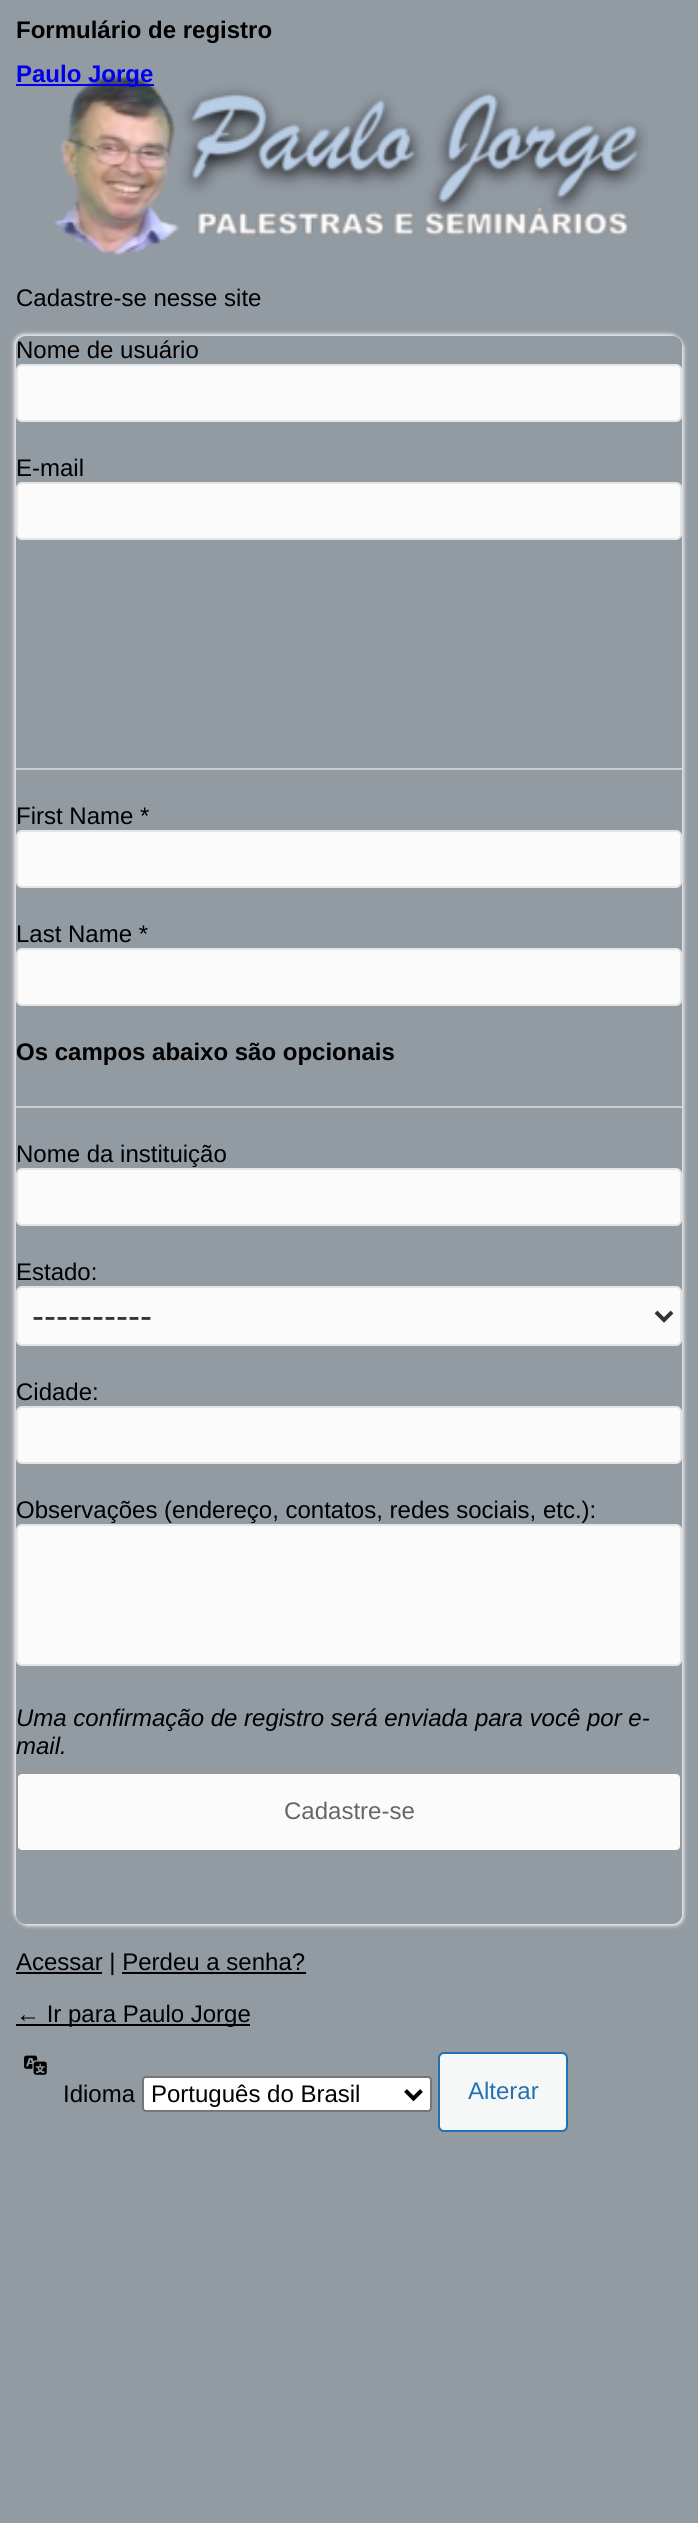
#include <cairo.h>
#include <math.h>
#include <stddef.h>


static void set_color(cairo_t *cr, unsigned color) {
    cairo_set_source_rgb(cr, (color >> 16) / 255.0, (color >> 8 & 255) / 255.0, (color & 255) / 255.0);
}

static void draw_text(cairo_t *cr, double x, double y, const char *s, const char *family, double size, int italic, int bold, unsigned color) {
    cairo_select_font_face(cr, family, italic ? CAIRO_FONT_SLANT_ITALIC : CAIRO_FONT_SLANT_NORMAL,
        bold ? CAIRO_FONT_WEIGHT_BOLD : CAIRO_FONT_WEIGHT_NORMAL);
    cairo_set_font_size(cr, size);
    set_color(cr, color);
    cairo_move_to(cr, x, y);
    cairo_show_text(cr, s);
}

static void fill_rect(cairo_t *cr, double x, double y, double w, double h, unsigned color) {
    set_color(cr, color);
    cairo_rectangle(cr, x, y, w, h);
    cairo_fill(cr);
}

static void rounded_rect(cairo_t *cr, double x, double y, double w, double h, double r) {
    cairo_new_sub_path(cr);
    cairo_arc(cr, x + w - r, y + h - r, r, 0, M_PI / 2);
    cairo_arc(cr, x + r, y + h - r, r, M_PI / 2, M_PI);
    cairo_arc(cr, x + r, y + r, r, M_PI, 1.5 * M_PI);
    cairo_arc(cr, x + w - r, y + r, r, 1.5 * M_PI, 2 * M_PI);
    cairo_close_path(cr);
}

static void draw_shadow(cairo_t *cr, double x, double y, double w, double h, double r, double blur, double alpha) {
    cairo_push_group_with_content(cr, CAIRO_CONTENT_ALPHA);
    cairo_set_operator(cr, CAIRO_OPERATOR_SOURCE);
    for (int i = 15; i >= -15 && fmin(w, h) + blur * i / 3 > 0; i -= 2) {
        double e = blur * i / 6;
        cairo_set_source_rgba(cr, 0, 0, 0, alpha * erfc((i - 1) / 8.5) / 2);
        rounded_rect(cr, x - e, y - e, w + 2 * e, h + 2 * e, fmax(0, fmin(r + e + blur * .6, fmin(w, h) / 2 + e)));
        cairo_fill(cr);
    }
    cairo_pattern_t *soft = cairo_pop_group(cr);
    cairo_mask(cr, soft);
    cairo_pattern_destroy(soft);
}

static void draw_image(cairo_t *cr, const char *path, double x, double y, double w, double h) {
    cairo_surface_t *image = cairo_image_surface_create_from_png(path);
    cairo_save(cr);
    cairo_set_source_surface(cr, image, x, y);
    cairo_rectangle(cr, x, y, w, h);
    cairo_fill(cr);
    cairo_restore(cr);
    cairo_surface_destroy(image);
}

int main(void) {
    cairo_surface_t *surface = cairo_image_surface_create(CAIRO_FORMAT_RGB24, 698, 2523);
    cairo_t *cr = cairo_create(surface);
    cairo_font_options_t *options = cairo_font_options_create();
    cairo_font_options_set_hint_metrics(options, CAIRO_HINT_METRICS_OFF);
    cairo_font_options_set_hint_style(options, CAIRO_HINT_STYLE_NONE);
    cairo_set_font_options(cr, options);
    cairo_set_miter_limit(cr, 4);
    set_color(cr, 0x929AA2);
    cairo_paint(cr);
    draw_text(cr, 16, 38, "Formulário de registro", "Liberation Sans", 24, 0, 1, 0x000000);
    draw_image(cr, "assets/img1.png", 54, 75, 594, 180);
    fill_rect(cr, 16, 84, 138, 2, 0x0000EE);
    draw_text(cr, 16, 82, "Paulo Jorge", "Liberation Sans", 24, 0, 1, 0x0000EE);
    draw_text(cr, 16, 306, "Cadastre-se nesse site", "Liberation Sans", 24, 0, 0, 0x000000);
    cairo_save(cr);
    cairo_set_fill_rule(cr, CAIRO_FILL_RULE_EVEN_ODD);
    cairo_new_path(cr);
    cairo_move_to(cr, 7, 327);
    cairo_line_to(cr, 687, 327);
    cairo_line_to(cr, 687, 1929);
    cairo_line_to(cr, 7, 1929);
    cairo_close_path(cr);
    cairo_move_to(cr, 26, 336);
    cairo_line_to(cr, 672, 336);
    cairo_curve_to(cr, 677.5, 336, 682, 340.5, 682, 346);
    cairo_line_to(cr, 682, 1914);
    cairo_curve_to(cr, 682, 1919.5, 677.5, 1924, 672, 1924);
    cairo_line_to(cr, 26, 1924);
    cairo_curve_to(cr, 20.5, 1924, 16, 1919.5, 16, 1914);
    cairo_line_to(cr, 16, 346);
    cairo_curve_to(cr, 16, 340.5, 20.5, 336, 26, 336);
    cairo_close_path(cr);
    cairo_clip(cr);
    set_color(cr, 0xEEEEEE);
    draw_shadow(cr, 14, 334, 666, 1588, 10, 2, 1);
    cairo_restore(cr);
    cairo_save(cr);
    cairo_set_fill_rule(cr, CAIRO_FILL_RULE_EVEN_ODD);
    cairo_new_path(cr);
    cairo_move_to(cr, 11, 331);
    cairo_line_to(cr, 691, 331);
    cairo_line_to(cr, 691, 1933);
    cairo_line_to(cr, 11, 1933);
    cairo_close_path(cr);
    cairo_move_to(cr, 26, 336);
    cairo_line_to(cr, 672, 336);
    cairo_curve_to(cr, 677.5, 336, 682, 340.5, 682, 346);
    cairo_line_to(cr, 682, 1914);
    cairo_curve_to(cr, 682, 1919.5, 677.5, 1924, 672, 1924);
    cairo_line_to(cr, 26, 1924);
    cairo_curve_to(cr, 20.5, 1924, 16, 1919.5, 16, 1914);
    cairo_line_to(cr, 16, 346);
    cairo_curve_to(cr, 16, 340.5, 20.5, 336, 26, 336);
    cairo_close_path(cr);
    cairo_clip(cr);
    set_color(cr, 0xEEEEEE);
    draw_shadow(cr, 18, 338, 666, 1588, 10, 2, 1);
    cairo_restore(cr);
    draw_text(cr, 16, 358, "Nome de usuário", "Liberation Sans", 24, 0, 0, 0x000000);
    set_color(cr, 0xFBFBFB);
    rounded_rect(cr, 17, 365, 664, 56, 5);
    cairo_fill_preserve(cr);
    set_color(cr, 0xE5E5E5);
    cairo_stroke(cr);
    draw_text(cr, 16, 476, "E-mail", "Liberation Sans", 24, 0, 0, 0x000000);
    set_color(cr, 0xFBFBFB);
    rounded_rect(cr, 17, 483, 664, 56, 5);
    cairo_fill_preserve(cr);
    set_color(cr, 0xE5E5E5);
    cairo_stroke(cr);
    fill_rect(cr, 16, 768, 666, 2, 0xCCCCCC);
    draw_text(cr, 16, 824, "First Name *", "Liberation Sans", 24, 0, 0, 0x000000);
    set_color(cr, 0xFBFBFB);
    rounded_rect(cr, 17, 831, 664, 56, 5);
    cairo_fill_preserve(cr);
    set_color(cr, 0xE5E5E5);
    cairo_stroke(cr);
    draw_text(cr, 16, 942, "Last Name *", "Liberation Sans", 24, 0, 0, 0x000000);
    set_color(cr, 0xFBFBFB);
    rounded_rect(cr, 17, 949, 664, 56, 5);
    cairo_fill_preserve(cr);
    set_color(cr, 0xE5E5E5);
    cairo_stroke(cr);
    fill_rect(cr, 16, 1106, 666, 2, 0xCCCCCC);
    draw_text(cr, 16, 1060, "Os campos abaixo são opcionais", "Liberation Sans", 24, 0, 1, 0x000000);
    draw_text(cr, 16, 1162, "Nome da instituição", "Liberation Sans", 24, 0, 0, 0x000000);
    set_color(cr, 0xFBFBFB);
    rounded_rect(cr, 17, 1169, 664, 56, 5);
    cairo_fill_preserve(cr);
    set_color(cr, 0xE5E5E5);
    cairo_stroke(cr);
    draw_text(cr, 16, 1280, "Estado:", "Liberation Sans", 24, 0, 0, 0x000000);
    set_color(cr, 0xFBFBFB);
    rounded_rect(cr, 17, 1287, 664, 58, 5);
    cairo_fill_preserve(cr);
    set_color(cr, 0xE5E5E5);
    cairo_stroke(cr);
    cairo_new_path(cr);
    cairo_move_to(cr, 656, 1312);
    cairo_line_to(cr, 664, 1320);
    cairo_line_to(cr, 672, 1312);
    set_color(cr, 0x333333);
    cairo_set_line_width(cr, 4);
    cairo_stroke(cr);
    draw_text(cr, 32, 1328, "----------", "Liberation Sans", 36, 0, 0, 0x333333);
    draw_text(cr, 16, 1400, "Cidade:", "Liberation Sans", 24, 0, 0, 0x000000);
    set_color(cr, 0xFBFBFB);
    rounded_rect(cr, 17, 1407, 664, 56, 5);
    cairo_fill_preserve(cr);
    set_color(cr, 0xE5E5E5);
    cairo_set_line_width(cr, 2);
    cairo_stroke(cr);
    draw_text(cr, 16, 1518, "Observações (endereço, contatos, redes sociais, etc.):", "Liberation Sans", 24, 0, 0, 0x000000);
    set_color(cr, 0xFBFBFB);
    rounded_rect(cr, 17, 1525, 664, 140, 5);
    cairo_fill_preserve(cr);
    set_color(cr, 0xE5E5E5);
    cairo_stroke(cr);
    draw_text(cr, 16, 1726, "Uma confirmação de registro será enviada para você por e-", "Liberation Sans", 24, 1, 0, 0x000000);
    draw_text(cr, 16, 1754, "mail.", "Liberation Sans", 24, 1, 0, 0x000000);
    set_color(cr, 0xFBFBFB);
    rounded_rect(cr, 17, 1773, 664, 78, 5);
    cairo_fill_preserve(cr);
    set_color(cr, 0x999999);
    cairo_stroke(cr);
    draw_text(cr, 284, 1819, "Cadastre-se", "Liberation Sans", 24, 0, 0, 0x666666);
    fill_rect(cr, 16, 1972, 86, 2, 0x000000);
    draw_text(cr, 16, 1970, "Acessar | Perdeu a senha?", "Liberation Sans", 24, 0, 0, 0x000000);
    fill_rect(cr, 122, 1972, 184, 2, 0x000000);
    fill_rect(cr, 16, 2024, 234, 2, 0x000000);
    draw_text(cr, 16, 2022, "← Ir para Paulo Jorge", "Liberation Sans", 24, 0, 0, 0x000000);
    draw_image(cr, "assets/img2.png", 24, 2055, 23, 20);
    draw_text(cr, 63, 2102, "Idioma", "Liberation Sans", 24, 0, 0, 0x000000);
    set_color(cr, 0xFFFFFF);
    rounded_rect(cr, 143, 2077, 288, 34, 3);
    cairo_fill_preserve(cr);
    set_color(cr, 0x767676);
    cairo_stroke(cr);
    cairo_new_path(cr);
    cairo_move_to(cr, 405.5, 2090.5);
    cairo_line_to(cr, 413.5, 2098.5);
    cairo_line_to(cr, 421.5, 2090.5);
    set_color(cr, 0x000000);
    cairo_set_line_width(cr, 4);
    cairo_stroke(cr);
    draw_text(cr, 151, 2102, "Português do Brasil", "Liberation Sans", 24, 0, 0, 0x000000);
    set_color(cr, 0xF6F7F7);
    rounded_rect(cr, 439, 2053, 128, 78, 5);
    cairo_fill_preserve(cr);
    set_color(cr, 0x2271B1);
    cairo_set_line_width(cr, 2);
    cairo_stroke(cr);
    draw_text(cr, 468, 2099, "Alterar", "Liberation Sans", 24, 0, 0, 0x2271B1);
    cairo_surface_write_to_png(surface, "output.png");
    cairo_font_options_destroy(options);
    cairo_destroy(cr);
    cairo_surface_destroy(surface);
    return 0;
}
